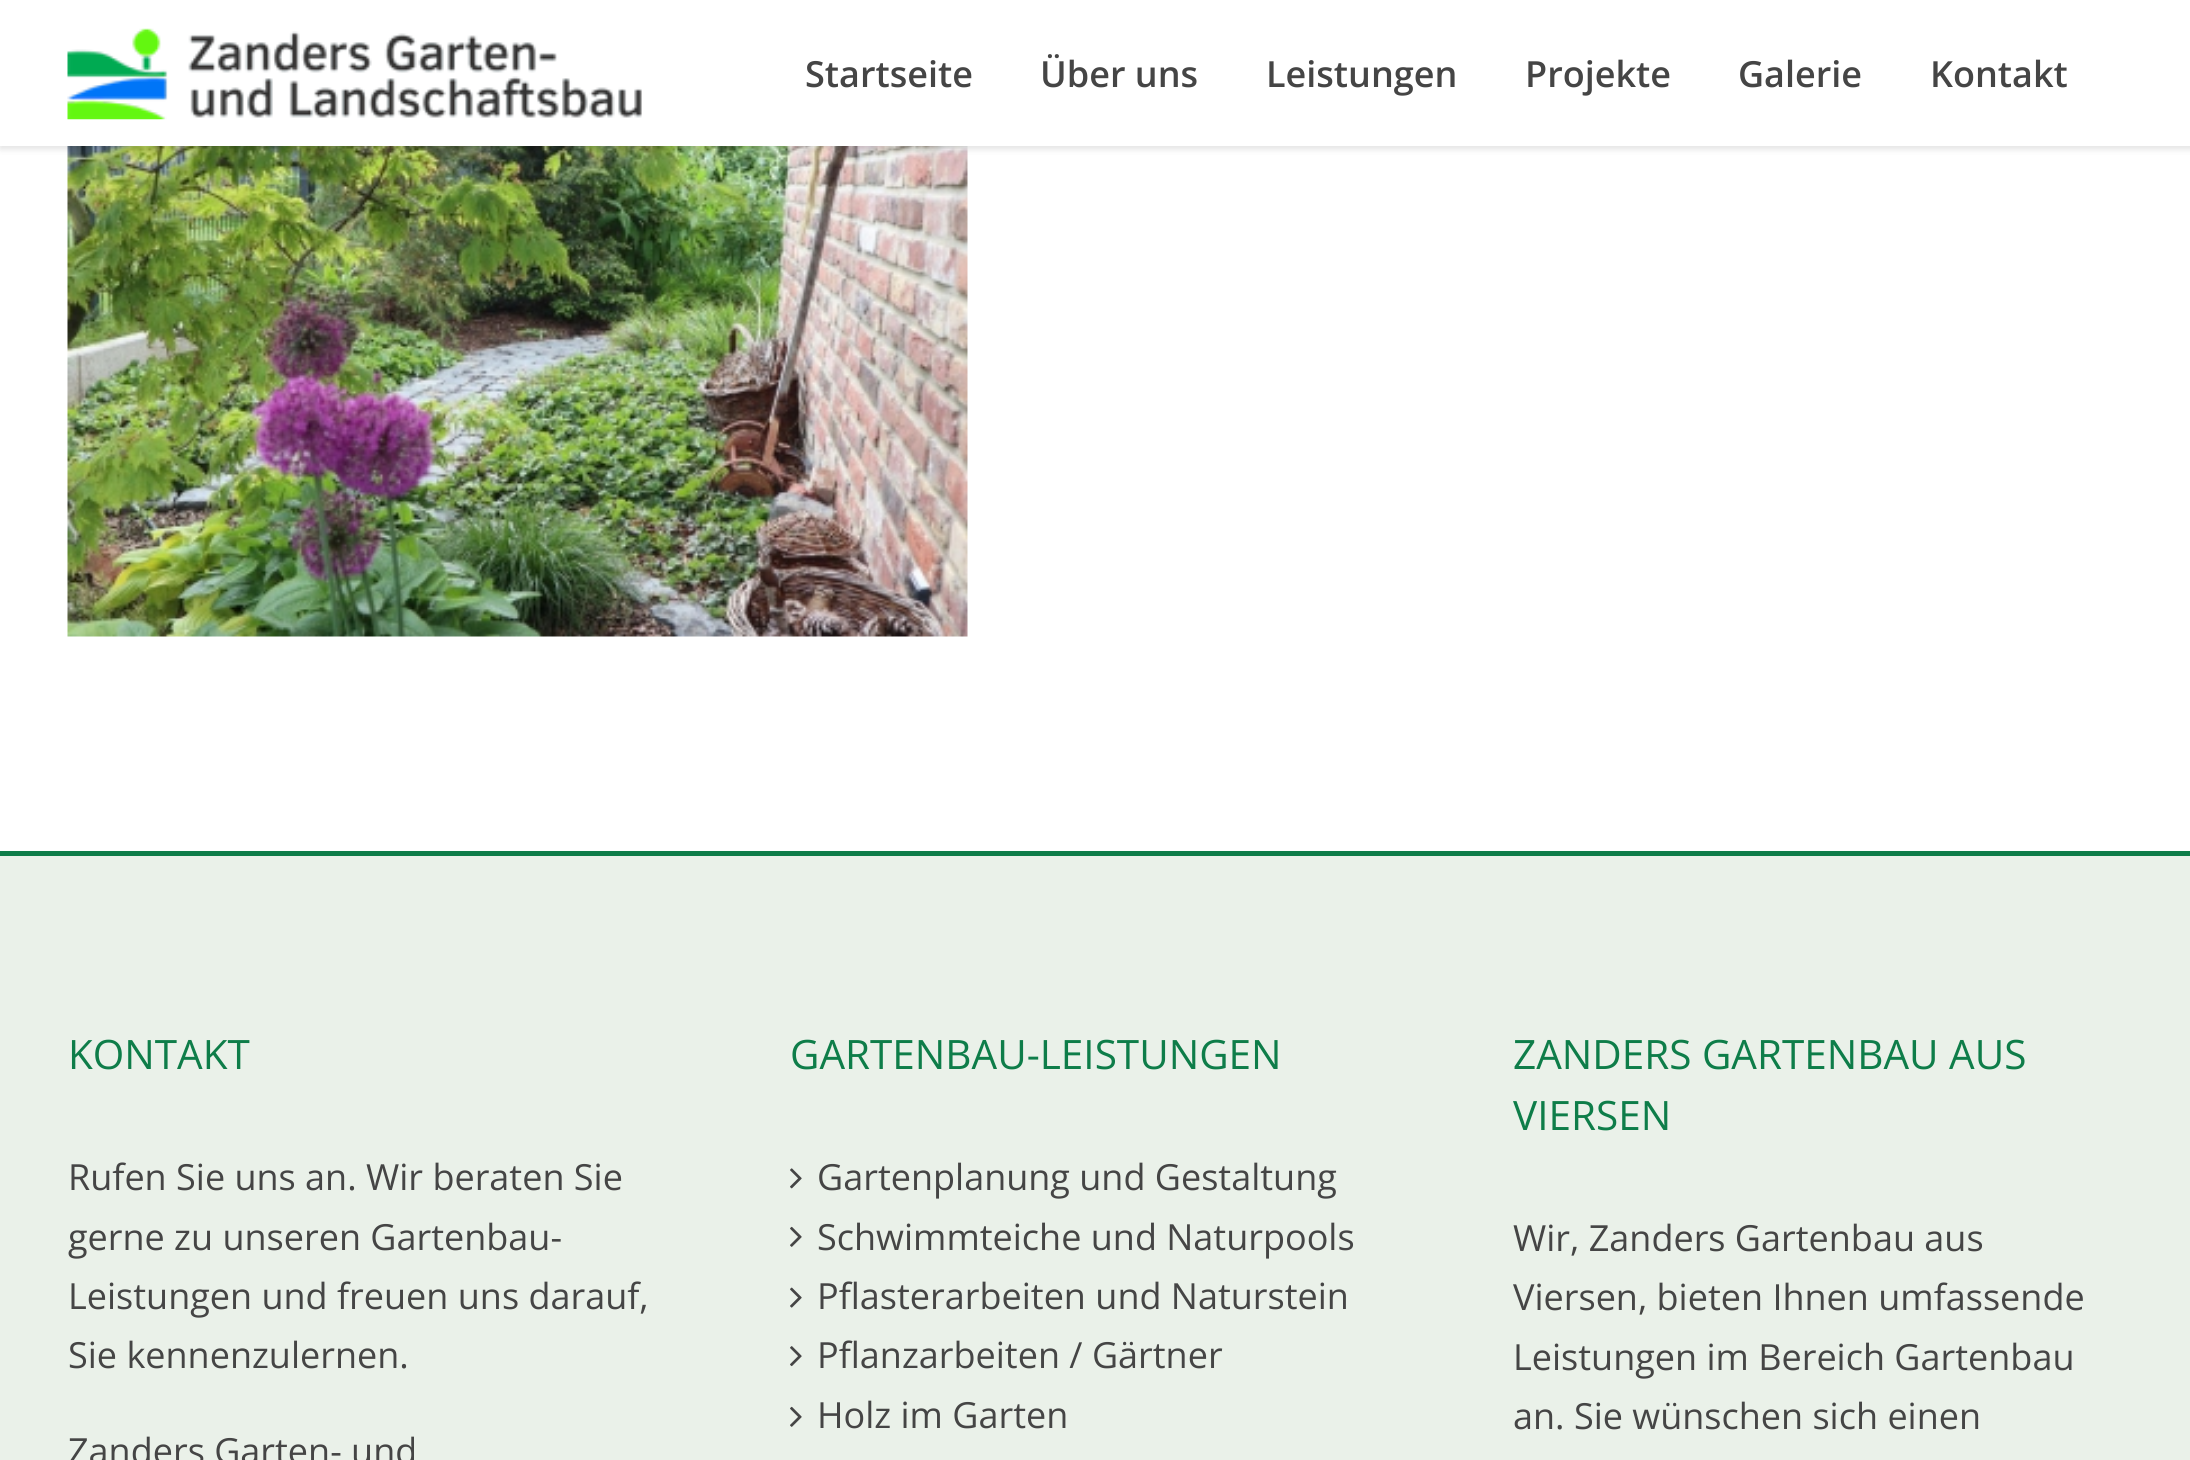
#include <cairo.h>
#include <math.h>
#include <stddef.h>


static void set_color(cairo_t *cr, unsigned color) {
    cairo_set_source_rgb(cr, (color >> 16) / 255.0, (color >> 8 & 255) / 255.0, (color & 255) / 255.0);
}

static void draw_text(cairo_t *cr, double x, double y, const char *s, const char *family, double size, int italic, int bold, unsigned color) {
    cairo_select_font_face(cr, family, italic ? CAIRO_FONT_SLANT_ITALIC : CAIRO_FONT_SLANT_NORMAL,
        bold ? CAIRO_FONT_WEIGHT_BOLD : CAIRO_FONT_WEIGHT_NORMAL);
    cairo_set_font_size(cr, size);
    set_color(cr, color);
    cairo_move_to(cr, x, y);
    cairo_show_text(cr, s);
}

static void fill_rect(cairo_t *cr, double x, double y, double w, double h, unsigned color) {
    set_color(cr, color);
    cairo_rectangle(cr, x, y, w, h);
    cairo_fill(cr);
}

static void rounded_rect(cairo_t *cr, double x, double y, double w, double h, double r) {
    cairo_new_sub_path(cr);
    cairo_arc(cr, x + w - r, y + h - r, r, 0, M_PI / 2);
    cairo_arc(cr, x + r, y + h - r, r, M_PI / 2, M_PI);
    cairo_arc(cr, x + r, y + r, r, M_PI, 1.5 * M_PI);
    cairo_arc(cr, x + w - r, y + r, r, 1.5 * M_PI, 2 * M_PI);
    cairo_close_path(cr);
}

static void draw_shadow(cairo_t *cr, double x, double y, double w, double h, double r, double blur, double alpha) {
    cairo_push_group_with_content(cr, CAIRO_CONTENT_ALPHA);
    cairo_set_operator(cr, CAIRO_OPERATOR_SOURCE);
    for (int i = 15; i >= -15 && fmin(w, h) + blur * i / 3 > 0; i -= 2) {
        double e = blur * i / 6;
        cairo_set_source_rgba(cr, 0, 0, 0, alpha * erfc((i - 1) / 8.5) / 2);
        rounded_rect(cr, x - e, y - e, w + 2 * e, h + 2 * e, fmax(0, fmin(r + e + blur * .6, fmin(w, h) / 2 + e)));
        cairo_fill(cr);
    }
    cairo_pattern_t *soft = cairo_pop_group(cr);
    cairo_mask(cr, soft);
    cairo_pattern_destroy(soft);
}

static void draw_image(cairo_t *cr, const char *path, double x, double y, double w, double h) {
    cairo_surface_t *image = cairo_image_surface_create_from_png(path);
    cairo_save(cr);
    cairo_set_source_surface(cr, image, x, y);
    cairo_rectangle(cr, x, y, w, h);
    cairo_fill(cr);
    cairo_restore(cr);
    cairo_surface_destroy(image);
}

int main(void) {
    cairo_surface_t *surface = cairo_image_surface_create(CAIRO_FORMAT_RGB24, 2190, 1460);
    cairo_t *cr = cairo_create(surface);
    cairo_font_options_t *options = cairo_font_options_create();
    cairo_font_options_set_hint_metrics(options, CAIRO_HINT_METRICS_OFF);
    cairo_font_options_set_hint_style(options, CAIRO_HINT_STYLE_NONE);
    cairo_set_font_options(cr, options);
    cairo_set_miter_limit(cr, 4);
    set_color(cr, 0xFFFFFF);
    cairo_paint(cr);
    draw_image(cr, "assets/img2.png", 67, 146, 901, 491);
    set_color(cr, 0x000000);
    draw_shadow(cr, 0, 2, 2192, 147, 0, 3.5, 0.12);
    fill_rect(cr, 0, 0, 2190, 146, 0xFFFFFF);
    draw_image(cr, "assets/img1.png", 67, 28, 575, 92);
    draw_text(cr, 805, 87, "Startseite", "Open Sans SemiBold", 36, 0, 0, 0x454545);
    draw_text(cr, 1040, 87, "Über uns", "Open Sans SemiBold", 36, 0, 0, 0x454545);
    draw_text(cr, 1266, 87, "Leistungen", "Open Sans SemiBold", 36, 0, 0, 0x454545);
    draw_text(cr, 1525, 87, "Projekte", "Open Sans SemiBold", 36, 0, 0, 0x454545);
    draw_text(cr, 1738, 87, "Galerie", "Open Sans SemiBold", 36, 0, 0, 0x454545);
    draw_text(cr, 1930, 87, "Kontakt", "Open Sans SemiBold", 36, 0, 0, 0x454545);
    fill_rect(cr, 0, 856, 2190, 604, 0xEAF1E9);
    fill_rect(cr, 0, 851, 2190, 5, 0x0E7D49);
    draw_text(cr, 68, 1069, "KONTAKT", "Open Sans", 40.5, 0, 0, 0x0E7D49);
    draw_text(cr, 68, 1190, "Rufen Sie uns an. Wir beraten Sie", "Open Sans", 36, 0, 0, 0x454545);
    draw_text(cr, 68, 1250, "gerne zu unseren Gartenbau-", "Open Sans", 36, 0, 0, 0x454545);
    draw_text(cr, 68, 1309, "Leistungen und freuen uns darauf,", "Open Sans", 36, 0, 0, 0x454545);
    draw_text(cr, 68, 1368, "Sie kennenzulernen.", "Open Sans", 36, 0, 0, 0x454545);
    draw_text(cr, 68, 1464, "Zanders Garten- und", "Open Sans", 36, 0, 0, 0x454545);
    draw_text(cr, 790, 1069, "GARTENBAU-LEISTUNGEN", "Open Sans", 40.5, 0, 0, 0x0E7D49);
    draw_image(cr, "assets/img3.png", 790, 1168, 12, 21);
    draw_text(cr, 817, 1190, "Gartenplanung und Gestaltung", "Open Sans", 36, 0, 0, 0x454545);
    draw_image(cr, "assets/img4.png", 790, 1226, 12, 21);
    draw_text(cr, 817, 1250, "Schwimmteiche und Naturpools", "Open Sans", 36, 0, 0, 0x454545);
    draw_image(cr, "assets/img5.png", 790, 1287, 12, 21);
    draw_text(cr, 817, 1309, "Pflasterarbeiten und Naturstein", "Open Sans", 36, 0, 0, 0x454545);
    draw_image(cr, "assets/img6.png", 790, 1346, 12, 21);
    draw_text(cr, 817, 1368, "Pflanzarbeiten / Gärtner", "Open Sans", 36, 0, 0, 0x454545);
    draw_image(cr, "assets/img4.png", 790, 1406, 12, 21);
    draw_text(cr, 817, 1428, "Holz im Garten", "Open Sans", 36, 0, 0, 0x454545);
    draw_text(cr, 1513, 1069, "ZANDERS GARTENBAU AUS", "Open Sans", 40.5, 0, 0, 0x0E7D49);
    draw_text(cr, 1513, 1130, "VIERSEN", "Open Sans", 40.5, 0, 0, 0x0E7D49);
    draw_text(cr, 1513, 1251, "Wir, Zanders Gartenbau aus", "Open Sans", 36, 0, 0, 0x454545);
    draw_text(cr, 1513, 1310, "Viersen, bieten Ihnen umfassende", "Open Sans", 36, 0, 0, 0x454545);
    draw_text(cr, 1513, 1370, "Leistungen im Bereich Gartenbau", "Open Sans", 36, 0, 0, 0x454545);
    draw_text(cr, 1513, 1429, "an. Sie wünschen sich einen", "Open Sans", 36, 0, 0, 0x454545);
    cairo_surface_write_to_png(surface, "output.png");
    cairo_font_options_destroy(options);
    cairo_destroy(cr);
    cairo_surface_destroy(surface);
    return 0;
}
